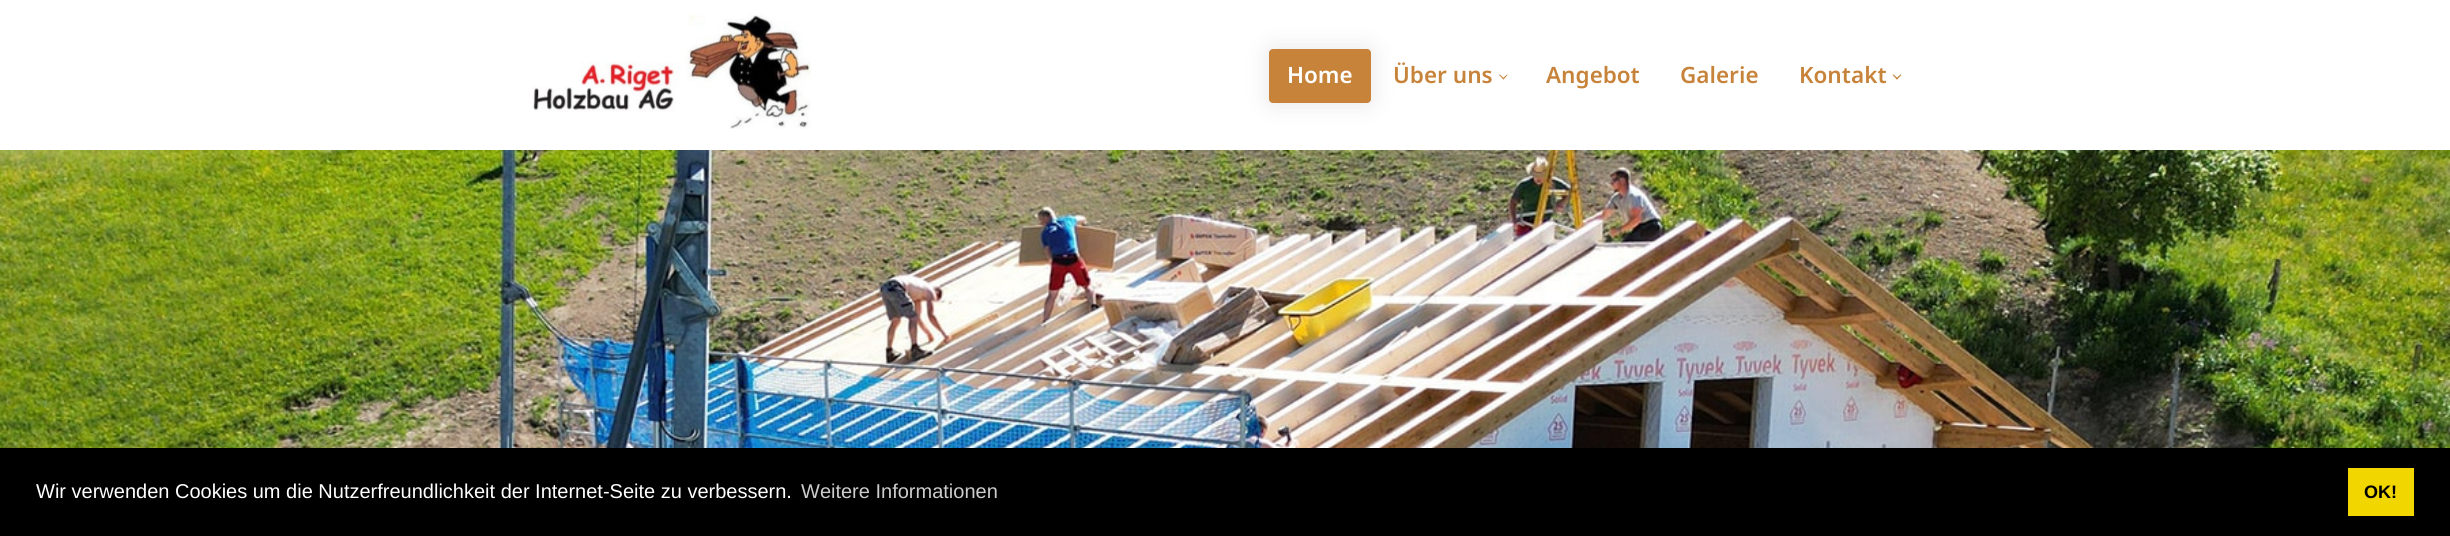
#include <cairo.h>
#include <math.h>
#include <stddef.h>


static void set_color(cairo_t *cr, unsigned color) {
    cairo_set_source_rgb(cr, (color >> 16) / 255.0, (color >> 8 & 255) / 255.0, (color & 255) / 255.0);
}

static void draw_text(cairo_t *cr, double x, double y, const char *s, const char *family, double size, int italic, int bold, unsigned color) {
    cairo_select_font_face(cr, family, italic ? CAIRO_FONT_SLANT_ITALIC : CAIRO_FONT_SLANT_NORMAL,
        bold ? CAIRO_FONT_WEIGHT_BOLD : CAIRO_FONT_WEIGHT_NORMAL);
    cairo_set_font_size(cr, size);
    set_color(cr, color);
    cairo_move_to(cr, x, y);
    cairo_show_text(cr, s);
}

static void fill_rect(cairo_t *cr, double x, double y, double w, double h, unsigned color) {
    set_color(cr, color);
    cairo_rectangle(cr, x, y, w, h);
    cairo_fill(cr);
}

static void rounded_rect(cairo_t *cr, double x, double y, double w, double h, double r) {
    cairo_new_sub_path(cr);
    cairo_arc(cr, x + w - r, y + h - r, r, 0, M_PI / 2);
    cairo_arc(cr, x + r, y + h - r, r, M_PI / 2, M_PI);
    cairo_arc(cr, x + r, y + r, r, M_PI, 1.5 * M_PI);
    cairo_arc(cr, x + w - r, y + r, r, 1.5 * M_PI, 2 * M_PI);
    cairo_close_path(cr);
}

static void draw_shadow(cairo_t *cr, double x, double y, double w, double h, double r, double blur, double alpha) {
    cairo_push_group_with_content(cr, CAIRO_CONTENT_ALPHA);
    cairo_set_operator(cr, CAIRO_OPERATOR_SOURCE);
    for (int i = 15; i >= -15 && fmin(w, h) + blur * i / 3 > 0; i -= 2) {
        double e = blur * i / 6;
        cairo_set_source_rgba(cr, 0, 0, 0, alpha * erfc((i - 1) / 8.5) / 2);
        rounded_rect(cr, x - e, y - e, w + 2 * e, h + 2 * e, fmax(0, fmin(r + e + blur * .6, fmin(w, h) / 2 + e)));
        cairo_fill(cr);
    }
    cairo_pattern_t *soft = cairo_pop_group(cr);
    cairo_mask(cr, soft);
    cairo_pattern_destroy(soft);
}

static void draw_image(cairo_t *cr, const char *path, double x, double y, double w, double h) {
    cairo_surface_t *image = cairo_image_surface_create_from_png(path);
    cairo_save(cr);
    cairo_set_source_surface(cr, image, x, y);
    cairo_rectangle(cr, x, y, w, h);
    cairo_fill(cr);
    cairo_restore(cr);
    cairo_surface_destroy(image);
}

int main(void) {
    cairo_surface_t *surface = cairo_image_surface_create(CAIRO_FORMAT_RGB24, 2450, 536);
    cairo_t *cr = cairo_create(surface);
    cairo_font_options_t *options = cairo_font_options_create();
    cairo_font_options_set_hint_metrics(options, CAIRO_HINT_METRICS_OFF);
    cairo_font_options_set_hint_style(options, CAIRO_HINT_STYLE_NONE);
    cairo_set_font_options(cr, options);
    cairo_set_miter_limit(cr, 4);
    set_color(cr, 0xFFFFFF);
    cairo_paint(cr);
    draw_image(cr, "assets/img1.png", 532, 13, 279, 116);
    set_color(cr, 0xC78339);
    rounded_rect(cr, 1269, 49, 102, 54, 4);
    cairo_fill(cr);
    cairo_save(cr);
    cairo_set_fill_rule(cr, CAIRO_FILL_RULE_EVEN_ODD);
    cairo_new_path(cr);
    cairo_move_to(cr, 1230, 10);
    cairo_line_to(cr, 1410, 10);
    cairo_line_to(cr, 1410, 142);
    cairo_line_to(cr, 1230, 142);
    cairo_close_path(cr);
    cairo_move_to(cr, 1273, 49);
    cairo_line_to(cr, 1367, 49);
    cairo_curve_to(cr, 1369, 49, 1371, 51, 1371, 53);
    cairo_line_to(cr, 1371, 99);
    cairo_curve_to(cr, 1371, 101, 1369, 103, 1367, 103);
    cairo_line_to(cr, 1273, 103);
    cairo_curve_to(cr, 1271, 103, 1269, 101, 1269, 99);
    cairo_line_to(cr, 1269, 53);
    cairo_curve_to(cr, 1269, 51, 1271, 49, 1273, 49);
    cairo_close_path(cr);
    cairo_clip(cr);
    set_color(cr, 0x000000);
    draw_shadow(cr, 1269, 49, 102, 54, 4, 12.5, 0.1);
    cairo_restore(cr);
    draw_text(cr, 1287, 83, "Home", "Noto Sans SemiBold", 22.5, 0, 0, 0xFFFFFF);
    draw_text(cr, 1393, 83, "Über uns", "Noto Sans SemiBold", 22.5, 0, 0, 0xC78339);
    cairo_new_path(cr);
    cairo_move_to(cr, 1507, 74.5);
    cairo_line_to(cr, 1507.5, 75);
    cairo_line_to(cr, 1503.5, 79.5);
    cairo_line_to(cr, 1502.5, 78.5);
    cairo_close_path(cr);
    cairo_fill(cr);
    cairo_new_path(cr);
    cairo_move_to(cr, 1500, 74.5);
    cairo_line_to(cr, 1504, 78.5);
    cairo_line_to(cr, 1503.5, 79.5);
    cairo_line_to(cr, 1499, 75);
    cairo_close_path(cr);
    cairo_fill(cr);
    draw_text(cr, 1546, 83, "Angebot", "Noto Sans SemiBold", 22.5, 0, 0, 0xC78339);
    draw_text(cr, 1680, 83, "Galerie", "Noto Sans SemiBold", 22.5, 0, 0, 0xC78339);
    draw_text(cr, 1799, 83, "Kontakt", "Noto Sans SemiBold", 22.5, 0, 0, 0xC78339);
    cairo_new_path(cr);
    cairo_move_to(cr, 1900.5, 74.5);
    cairo_line_to(cr, 1901.5, 75);
    cairo_line_to(cr, 1897, 79.5);
    cairo_line_to(cr, 1896, 78.5);
    cairo_close_path(cr);
    cairo_fill(cr);
    cairo_new_path(cr);
    cairo_move_to(cr, 1893.5, 74.5);
    cairo_line_to(cr, 1898, 78.5);
    cairo_line_to(cr, 1897, 79.5);
    cairo_line_to(cr, 1892.5, 75);
    cairo_close_path(cr);
    cairo_fill(cr);
    draw_image(cr, "assets/img2.png", 0, 150, 2450, 298);
    fill_rect(cr, 0, 448, 2450, 88, 0x000000);
    draw_text(cr, 36, 498, "Wir verwenden Cookies um die Nutzerfreundlichkeit der Internet-Seite zu verbessern.", "Liberation Sans", 20, 0, 0, 0xFFFFFF);
    draw_text(cr, 801, 498, "Weitere Informationen", "Liberation Sans", 20, 0, 0, 0xCCCCCC);
    fill_rect(cr, 2348, 468, 66, 48, 0xF1D600);
    draw_text(cr, 2364, 498, "OK!", "Liberation Sans", 18, 0, 1, 0x000000);
    cairo_surface_write_to_png(surface, "output.png");
    cairo_font_options_destroy(options);
    cairo_destroy(cr);
    cairo_surface_destroy(surface);
    return 0;
}
